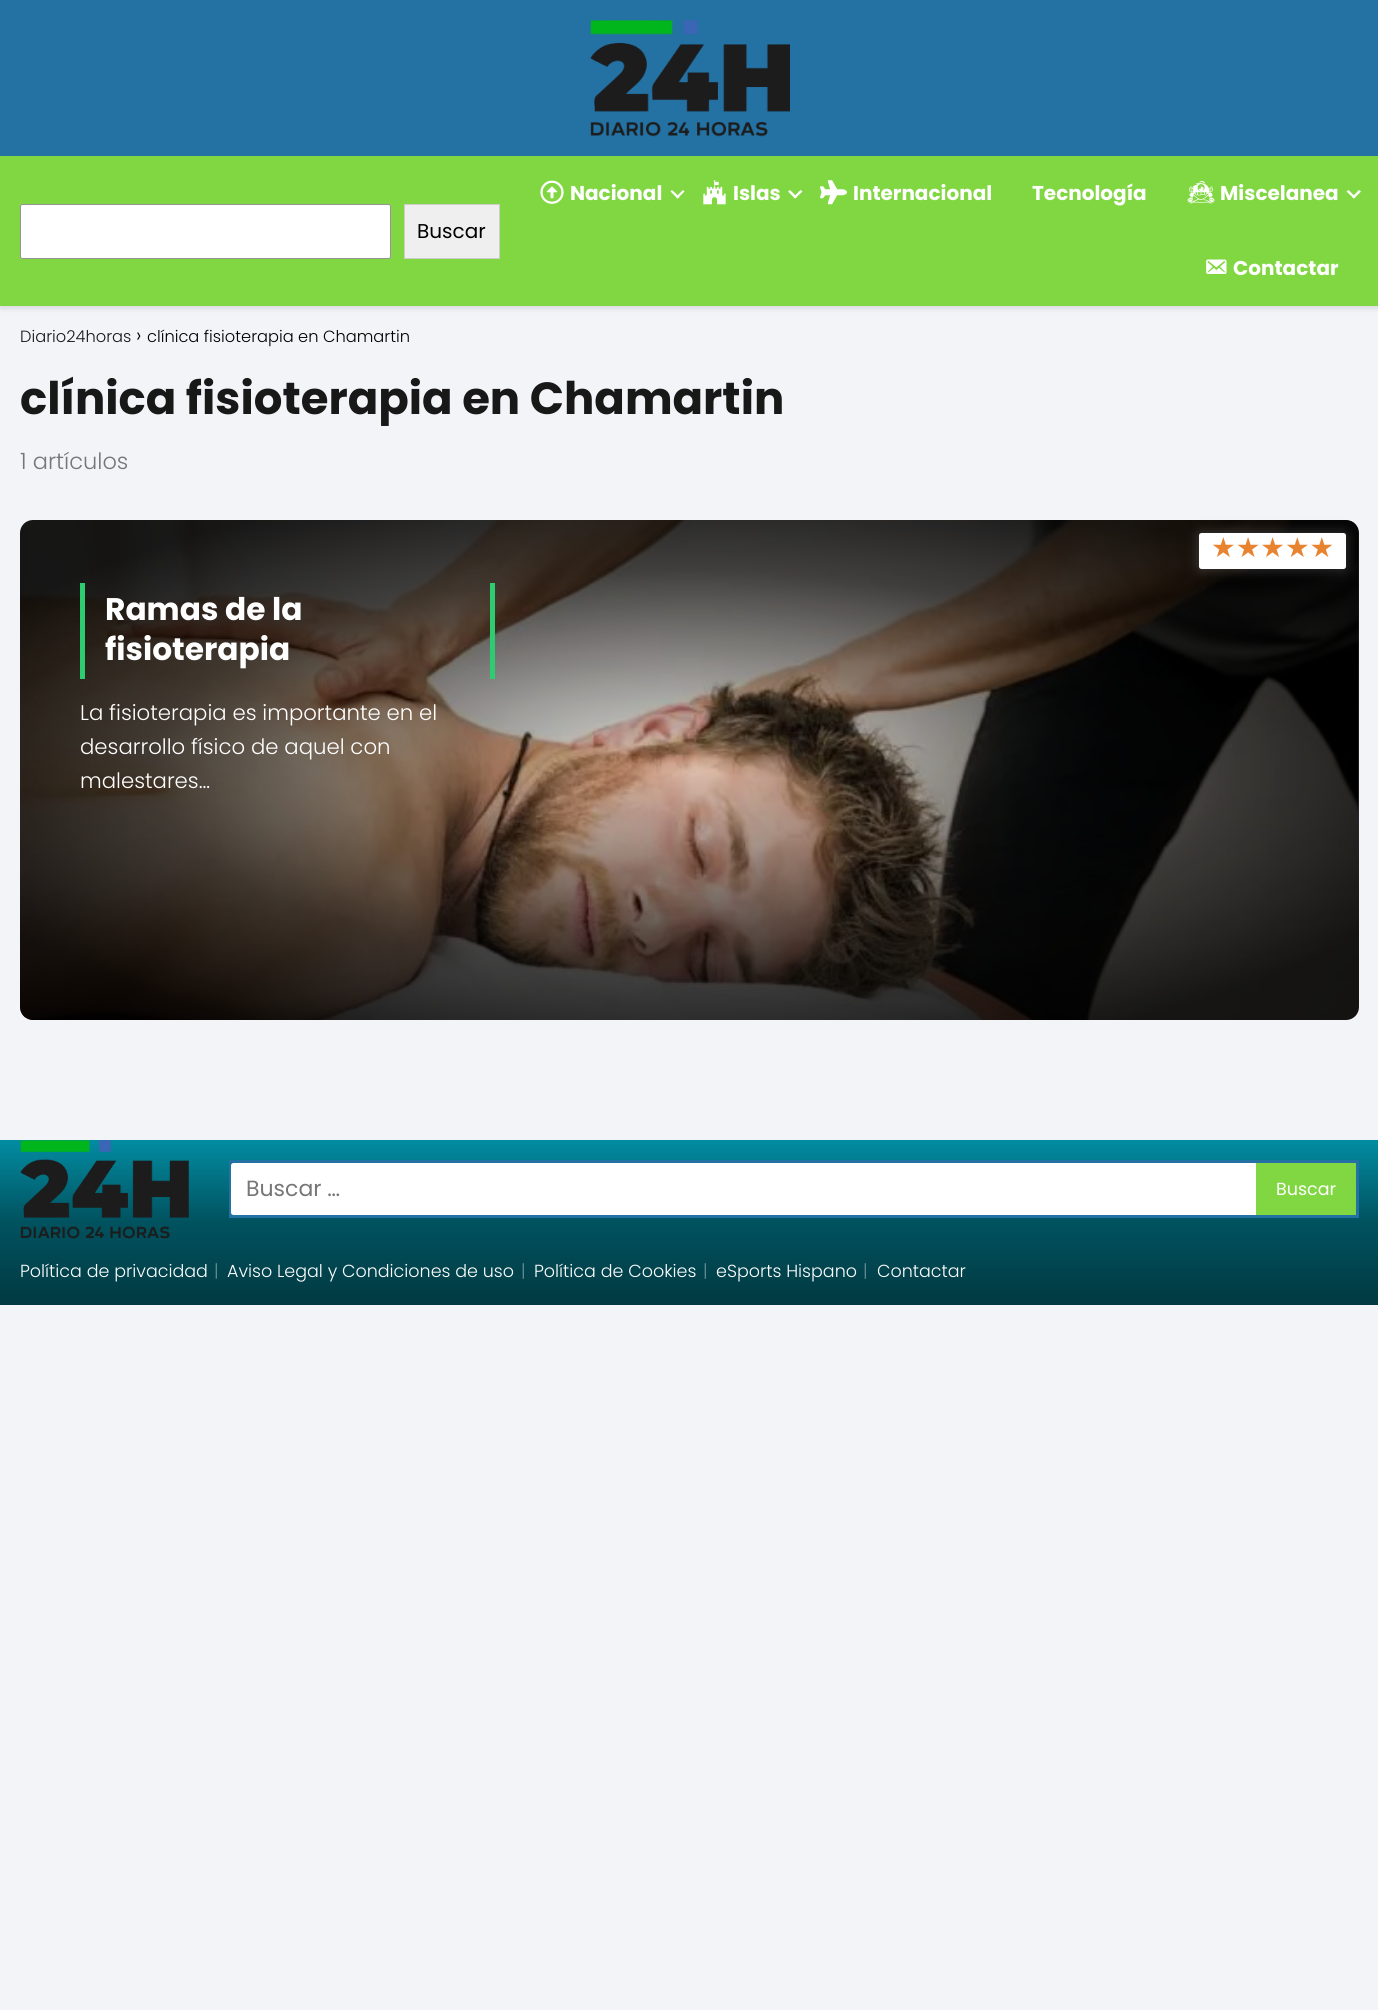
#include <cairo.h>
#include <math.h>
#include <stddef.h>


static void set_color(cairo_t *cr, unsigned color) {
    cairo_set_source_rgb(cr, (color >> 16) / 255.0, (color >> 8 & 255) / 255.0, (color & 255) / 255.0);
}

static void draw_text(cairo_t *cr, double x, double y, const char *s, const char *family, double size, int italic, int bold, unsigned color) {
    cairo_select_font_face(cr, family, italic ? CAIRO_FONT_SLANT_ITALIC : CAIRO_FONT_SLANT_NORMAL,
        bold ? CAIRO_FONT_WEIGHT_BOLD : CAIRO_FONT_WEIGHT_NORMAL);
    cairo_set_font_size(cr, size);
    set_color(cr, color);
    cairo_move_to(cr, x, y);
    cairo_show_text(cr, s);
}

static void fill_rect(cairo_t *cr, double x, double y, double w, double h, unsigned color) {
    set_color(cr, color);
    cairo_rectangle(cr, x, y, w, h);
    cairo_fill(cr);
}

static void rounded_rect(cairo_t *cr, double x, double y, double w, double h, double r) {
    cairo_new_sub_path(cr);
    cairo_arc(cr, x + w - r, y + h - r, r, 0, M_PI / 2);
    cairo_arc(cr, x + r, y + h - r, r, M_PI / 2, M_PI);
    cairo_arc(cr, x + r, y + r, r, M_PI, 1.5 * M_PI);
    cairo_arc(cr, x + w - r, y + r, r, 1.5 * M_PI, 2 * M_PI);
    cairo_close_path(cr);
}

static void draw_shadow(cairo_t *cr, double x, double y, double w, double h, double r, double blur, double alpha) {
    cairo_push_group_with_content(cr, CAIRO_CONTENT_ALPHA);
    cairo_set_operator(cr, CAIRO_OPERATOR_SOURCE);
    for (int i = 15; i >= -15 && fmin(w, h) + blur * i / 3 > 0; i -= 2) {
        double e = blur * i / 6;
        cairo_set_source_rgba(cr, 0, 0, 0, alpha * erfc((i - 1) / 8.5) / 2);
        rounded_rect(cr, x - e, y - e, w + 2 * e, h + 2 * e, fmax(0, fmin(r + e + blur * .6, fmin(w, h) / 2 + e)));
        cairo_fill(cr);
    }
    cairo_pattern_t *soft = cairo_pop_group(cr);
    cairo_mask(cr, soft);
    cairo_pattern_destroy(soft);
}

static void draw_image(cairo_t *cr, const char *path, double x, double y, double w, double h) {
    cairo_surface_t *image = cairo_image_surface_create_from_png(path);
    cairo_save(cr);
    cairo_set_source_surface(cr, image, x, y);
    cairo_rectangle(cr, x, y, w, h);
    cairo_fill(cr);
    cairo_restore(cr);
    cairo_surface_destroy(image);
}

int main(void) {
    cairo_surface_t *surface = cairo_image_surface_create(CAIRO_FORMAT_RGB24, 1378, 2010);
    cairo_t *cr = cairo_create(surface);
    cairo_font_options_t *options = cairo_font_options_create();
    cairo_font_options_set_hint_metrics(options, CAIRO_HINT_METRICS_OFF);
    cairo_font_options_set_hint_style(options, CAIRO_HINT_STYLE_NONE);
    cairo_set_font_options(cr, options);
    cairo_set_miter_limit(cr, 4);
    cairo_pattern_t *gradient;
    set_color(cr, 0xF3F4F8);
    cairo_paint(cr);
    set_color(cr, 0x000000);
    draw_shadow(cr, 0, 159, 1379, 150, 0, 2.5, 0.1);
    fill_rect(cr, 0, 0, 1378, 156, 0x2471A3);
    draw_image(cr, "assets/img1.png", 590, 20, 200, 117);
    fill_rect(cr, 0, 156, 1378, 150, 0x81D742);
    set_color(cr, 0xFFFFFF);
    rounded_rect(cr, 20.5, 204.5, 370, 54, 2);
    cairo_fill_preserve(cr);
    set_color(cr, 0x949494);
    cairo_set_line_width(cr, 1);
    cairo_stroke(cr);
    set_color(cr, 0xEFEFEF);
    cairo_rectangle(cr, 404.5, 204.5, 95, 54);
    cairo_fill_preserve(cr);
    set_color(cr, 0xCCCCCC);
    cairo_stroke(cr);
    draw_text(cr, 417, 238, "Buscar", "Poppins", 20, 0, 0, 0x000000);
    draw_image(cr, "assets/img2.png", 540, 180, 24, 24);
    draw_text(cr, 570, 200, "Nacional", "Poppins", 20, 0, 1, 0xFFFFFF);
    cairo_new_path(cr);
    cairo_move_to(cr, 683, 190);
    cairo_line_to(cr, 684.5, 191.5);
    cairo_line_to(cr, 677.5, 198.5);
    cairo_line_to(cr, 676, 197);
    cairo_close_path(cr);
    cairo_fill(cr);
    cairo_new_path(cr);
    cairo_move_to(cr, 672, 190);
    cairo_line_to(cr, 679.5, 197);
    cairo_line_to(cr, 677.5, 198.5);
    cairo_line_to(cr, 670.5, 191.5);
    cairo_close_path(cr);
    cairo_fill(cr);
    draw_image(cr, "assets/img3.png", 703, 180, 23, 25);
    draw_text(cr, 733, 200, "Islas", "Poppins", 20, 0, 1, 0xFFFFFF);
    cairo_new_path(cr);
    cairo_move_to(cr, 800.5, 190);
    cairo_line_to(cr, 802.5, 191.5);
    cairo_line_to(cr, 795, 198.5);
    cairo_line_to(cr, 793.5, 197);
    cairo_close_path(cr);
    cairo_fill(cr);
    cairo_new_path(cr);
    cairo_move_to(cr, 790, 190);
    cairo_line_to(cr, 797, 197);
    cairo_line_to(cr, 795, 198.5);
    cairo_line_to(cr, 788, 191.5);
    cairo_close_path(cr);
    cairo_fill(cr);
    draw_image(cr, "assets/img4.png", 820, 180, 27, 25);
    draw_text(cr, 853, 200, "Internacional", "Poppins", 20, 0, 1, 0xFFFFFF);
    draw_text(cr, 1032, 200, "Tecnología", "Poppins", 20, 0, 1, 0xFFFFFF);
    draw_image(cr, "assets/img5.png", 1187, 180, 28, 24);
    draw_text(cr, 1220, 200, "Miscelanea", "Poppins", 20, 0, 1, 0xFFFFFF);
    cairo_new_path(cr);
    cairo_move_to(cr, 1359, 190);
    cairo_line_to(cr, 1361, 191.5);
    cairo_line_to(cr, 1354, 198.5);
    cairo_line_to(cr, 1352, 197);
    cairo_close_path(cr);
    cairo_fill(cr);
    cairo_new_path(cr);
    cairo_move_to(cr, 1348.5, 190);
    cairo_line_to(cr, 1355.5, 197);
    cairo_line_to(cr, 1354, 198.5);
    cairo_line_to(cr, 1346.5, 191.5);
    cairo_close_path(cr);
    cairo_fill(cr);
    draw_image(cr, "assets/img6.png", 1206, 259, 21, 15);
    draw_text(cr, 1233, 275, "Contactar", "Poppins", 20, 0, 1, 0xFFFFFF);
    draw_text(cr, 20, 342, "Diario24horas", "Poppins Light", 16.25, 0, 0, 0x181818);
    draw_text(cr, 136, 342, "›", "Poppins Light", 20, 0, 0, 0x000000);
    draw_text(cr, 147, 342, "clínica fisioterapia en Chamartin", "Poppins Light", 16.25, 0, 0, 0x000000);
    draw_text(cr, 20, 414, "clínica fisioterapia en Chamartin", "Poppins", 45, 0, 1, 0x181818);
    draw_text(cr, 20, 469, "1 artículos", "Poppins Light", 22.5, 0, 0, 0x767676);
    draw_image(cr, "assets/img7.png", 20, 520, 1339, 500);
    gradient = cairo_pattern_create_radial(0, 0, 0, 0, 0, 1);
    cairo_pattern_set_matrix(gradient, &(cairo_matrix_t){1.0 / 797, 0, 0, 1.0 / 298, -1.0 * 689 / 797, -1.0 * 770 / 298});
    cairo_pattern_add_color_stop_rgba(gradient, 0, 0, 0, 0, 0.12);
    cairo_pattern_add_color_stop_rgba(gradient, 0.26, 0, 0, 0, 0.34);
    cairo_pattern_add_color_stop_rgba(gradient, 0.67, 0, 0, 0, 0.74);
    cairo_pattern_add_color_stop_rgba(gradient, 1, 0, 0, 0, 0.9);
    cairo_set_source(cr, gradient);
    cairo_pattern_destroy(gradient);
    rounded_rect(cr, 20, 520, 1339, 500, 13);
    cairo_fill(cr);
    set_color(cr, 0x777777);
    draw_shadow(cr, 1199, 533, 147, 36, 2.5, 6, 0.48);
    set_color(cr, 0xFFFFFF);
    rounded_rect(cr, 1199, 533, 147, 36, 2.5);
    cairo_fill(cr);
    draw_text(cr, 1211, 557, "★★★★★", "DejaVu Sans", 27.5, 0, 0, 0xE88330);
    fill_rect(cr, 490, 583, 5, 96, 0x2ECC71);
    fill_rect(cr, 80, 583, 5, 96, 0x2ECC71);
    draw_text(cr, 105, 620, "Ramas de la", "Poppins", 31.25, 0, 1, 0xFFFFFF);
    draw_text(cr, 105, 660, "fisioterapia", "Poppins", 31.25, 0, 1, 0xFFFFFF);
    draw_text(cr, 80, 720, "La fisioterapia es importante en el", "Poppins Light", 21.25, 0, 0, 0xFFFFFF);
    draw_text(cr, 80, 754, "desarrollo físico de aquel con", "Poppins Light", 21.25, 0, 0, 0xFFFFFF);
    draw_text(cr, 80, 788, "malestares…", "Poppins Light", 21.25, 0, 0, 0xFFFFFF);
    gradient = cairo_pattern_create_linear(689, 1305, 689, 1140);
    cairo_pattern_add_color_stop_rgba(gradient, 0, 0.004, 0.224, 0.255, 1);
    cairo_pattern_add_color_stop_rgba(gradient, 0, 0.012, 0.263, 0.729, 1);
    cairo_pattern_add_color_stop_rgba(gradient, 0, 0.761, 0.761, 0.761, 1);
    cairo_pattern_add_color_stop_rgba(gradient, 0, 0.075, 0.463, 0.643, 1);
    cairo_pattern_add_color_stop_rgba(gradient, 0, 0.012, 0.263, 0.729, 1);
    cairo_pattern_add_color_stop_rgba(gradient, 0, 0.004, 0.224, 0.255, 1);
    cairo_pattern_add_color_stop_rgba(gradient, 0.51, 0.004, 0.325, 0.376, 1);
    cairo_pattern_add_color_stop_rgba(gradient, 1, 0.008, 0.549, 0.635, 1);
    cairo_set_source(cr, gradient);
    cairo_pattern_destroy(gradient);
    cairo_rectangle(cr, 0, 1140, 1378, 165);
    cairo_fill(cr);
    draw_image(cr, "assets/img8.png", 20, 1140, 169, 99);
    cairo_rectangle(cr, 230.5, 1161.5, 1127, 55);
    set_color(cr, 0x2471A3);
    cairo_set_line_width(cr, 3);
    cairo_stroke(cr);
    set_color(cr, 0xFFFFFF);
    rounded_rect(cr, 231, 1163, 1125, 52, 2.5);
    cairo_fill(cr);
    draw_text(cr, 246, 1196, "Buscar …", "Poppins", 22, 0, 0, 0x767676);
    fill_rect(cr, 1256, 1163, 100, 52, 0x81D742);
    draw_text(cr, 1276, 1195, "Buscar", "Poppins", 17.5, 0, 0, 0xFFFFFF);
    draw_text(cr, 20, 1277, "Política de privacidad", "Poppins Light", 17.5, 0, 0, 0xFFFFFF);
    draw_text(cr, 214, 1277, "|", "Poppins Light", 17.5, 0, 0, 0x678F95);
    draw_text(cr, 227, 1277, "Aviso Legal y Condiciones de uso", "Poppins Light", 17.5, 0, 0, 0xFFFFFF);
    draw_text(cr, 521, 1277, "|", "Poppins Light", 17.5, 0, 0, 0x678F95);
    draw_text(cr, 534, 1277, "Política de Cookies", "Poppins Light", 17.5, 0, 0, 0xFFFFFF);
    draw_text(cr, 703, 1277, "|", "Poppins Light", 17.5, 0, 0, 0x678F95);
    draw_text(cr, 716, 1277, "eSports Hispano", "Poppins Light", 17.5, 0, 0, 0xFFFFFF);
    draw_text(cr, 863, 1277, "|", "Poppins Light", 17.5, 0, 0, 0x678F95);
    draw_text(cr, 877, 1277, "Contactar", "Poppins Light", 17.5, 0, 0, 0xFFFFFF);
    cairo_surface_write_to_png(surface, "output.png");
    cairo_font_options_destroy(options);
    cairo_destroy(cr);
    cairo_surface_destroy(surface);
    return 0;
}
